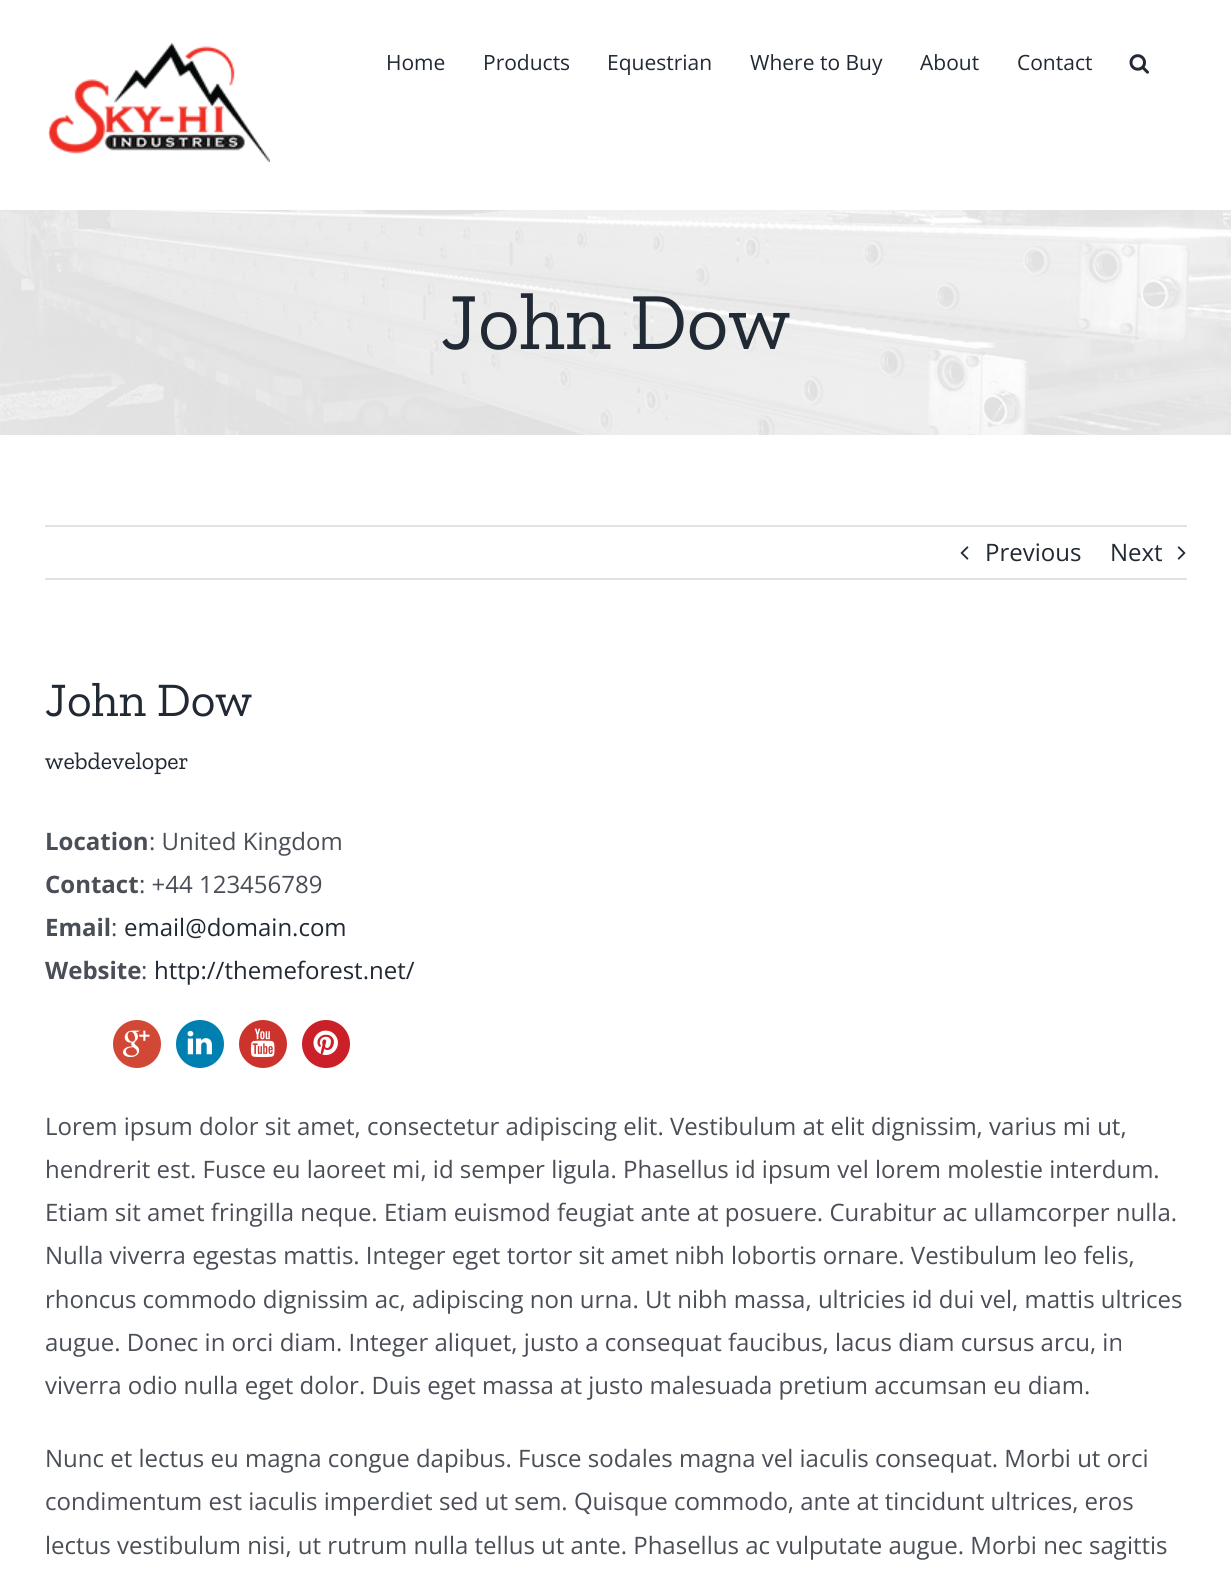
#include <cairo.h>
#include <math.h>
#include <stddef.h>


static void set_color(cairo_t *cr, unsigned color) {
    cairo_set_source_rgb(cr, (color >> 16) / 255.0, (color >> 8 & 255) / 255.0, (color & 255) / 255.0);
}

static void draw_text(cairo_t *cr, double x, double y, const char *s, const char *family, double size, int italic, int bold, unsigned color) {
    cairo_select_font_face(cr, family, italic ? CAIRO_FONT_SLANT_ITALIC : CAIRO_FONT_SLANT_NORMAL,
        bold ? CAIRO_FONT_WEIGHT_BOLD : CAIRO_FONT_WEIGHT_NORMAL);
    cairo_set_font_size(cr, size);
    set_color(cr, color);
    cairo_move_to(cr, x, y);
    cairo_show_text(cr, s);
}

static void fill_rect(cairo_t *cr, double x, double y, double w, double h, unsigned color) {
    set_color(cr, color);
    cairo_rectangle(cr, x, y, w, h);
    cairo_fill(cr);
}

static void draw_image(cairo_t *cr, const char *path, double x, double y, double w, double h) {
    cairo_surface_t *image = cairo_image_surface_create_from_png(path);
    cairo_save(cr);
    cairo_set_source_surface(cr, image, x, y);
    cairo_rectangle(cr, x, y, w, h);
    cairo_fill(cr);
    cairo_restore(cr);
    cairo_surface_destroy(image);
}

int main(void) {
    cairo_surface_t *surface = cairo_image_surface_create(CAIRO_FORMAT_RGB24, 1231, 1591);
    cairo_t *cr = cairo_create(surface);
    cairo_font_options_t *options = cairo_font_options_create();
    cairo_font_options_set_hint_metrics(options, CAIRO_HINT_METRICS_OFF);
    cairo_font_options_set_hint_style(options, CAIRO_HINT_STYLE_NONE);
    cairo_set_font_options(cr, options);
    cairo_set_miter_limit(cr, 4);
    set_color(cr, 0xFFFFFF);
    cairo_paint(cr);
    draw_image(cr, "assets/img1.png", 48, 43, 222, 119);
    draw_text(cr, 386, 70, "Home", "Open Sans", 21, 0, 0, 0x212934);
    draw_text(cr, 483, 70, "Products", "Open Sans", 21, 0, 0, 0x212934);
    draw_text(cr, 607, 70, "Equestrian", "Open Sans", 21, 0, 0, 0x212934);
    draw_text(cr, 750, 70, "Where to Buy", "Open Sans", 21, 0, 0, 0x212934);
    draw_text(cr, 920, 70, "About", "Open Sans", 21, 0, 0, 0x212934);
    draw_text(cr, 1017, 70, "Contact", "Open Sans", 21, 0, 0, 0x212934);
    draw_image(cr, "assets/img2.png", 1129, 54, 20, 20);
    draw_image(cr, "assets/img3.png", 0, 210, 1231, 225);
    draw_text(cr, 441, 349, "John Dow", "Zilla Slab", 81, 0, 0, 0x212934);
    fill_rect(cr, 45, 525, 1142, 2, 0xE2E2E2);
    fill_rect(cr, 45, 578, 1142, 2, 0xE2E2E2);
    draw_image(cr, "assets/img4.png", 960, 546, 9, 14);
    draw_text(cr, 985, 561, "Previous", "Open Sans", 24, 0, 0, 0x212934);
    draw_text(cr, 1110, 561, "Next", "Open Sans", 24, 0, 0, 0x212934);
    draw_image(cr, "assets/img5.png", 1177, 546, 9, 14);
    draw_text(cr, 45, 716, "John Dow", "Zilla Slab", 48, 0, 0, 0x212934);
    draw_text(cr, 45, 769, "webdeveloper", "Zilla Slab", 24, 0, 0, 0x212934);
    draw_text(cr, 45, 850, "Location", "Open Sans", 24, 0, 1, 0x4A4E57);
    draw_text(cr, 149, 850, ": United Kingdom", "Open Sans", 24, 0, 0, 0x4A4E57);
    draw_text(cr, 45, 893, "Contact", "Open Sans", 24, 0, 1, 0x4A4E57);
    draw_text(cr, 139, 893, ": +44 123456789", "Open Sans", 24, 0, 0, 0x4A4E57);
    draw_text(cr, 45, 936, "Email", "Open Sans", 24, 0, 1, 0x4A4E57);
    draw_text(cr, 111, 936, ":", "Open Sans", 24, 0, 0, 0x4A4E57);
    draw_text(cr, 124, 936, "email@domain.com", "Open Sans", 24, 0, 0, 0x212934);
    draw_text(cr, 45, 979, "Website", "Open Sans", 24, 0, 1, 0x4A4E57);
    draw_text(cr, 141, 979, ":", "Open Sans", 24, 0, 0, 0x4A4E57);
    draw_text(cr, 154, 979, "http://themeforest.net/", "Open Sans", 24, 0, 0, 0x212934);
    set_color(cr, 0xD14836);
    cairo_new_path(cr);
    cairo_arc(cr, 137, 1044, 24, 0, 2 * M_PI);
    cairo_fill(cr);
    draw_image(cr, "assets/img6.png", 123, 1030, 27, 28);
    set_color(cr, 0x007FB1);
    cairo_arc(cr, 200, 1044, 24, 0, 2 * M_PI);
    cairo_fill(cr);
    draw_image(cr, "assets/img7.png", 187, 1030, 25, 25);
    set_color(cr, 0xCD332D);
    cairo_arc(cr, 263, 1044, 24, 0, 2 * M_PI);
    cairo_fill(cr);
    draw_image(cr, "assets/img8.png", 250, 1028, 25, 30);
    set_color(cr, 0xCB2027);
    cairo_arc(cr, 326, 1044, 24, 0, 2 * M_PI);
    cairo_fill(cr);
    draw_image(cr, "assets/img9.png", 313, 1030, 25, 25);
    draw_text(cr, 45, 1135, "Lorem ipsum dolor sit amet, consectetur adipiscing elit. Vestibulum at elit dignissim, varius mi ut,", "Open Sans", 24, 0, 0, 0x4A4E57);
    draw_text(cr, 45, 1178, "hendrerit est. Fusce eu laoreet mi, id semper ligula. Phasellus id ipsum vel lorem molestie interdum.", "Open Sans", 24, 0, 0, 0x4A4E57);
    draw_text(cr, 45, 1221, "Etiam sit amet fringilla neque. Etiam euismod feugiat ante at posuere. Curabitur ac ullamcorper nulla.", "Open Sans", 24, 0, 0, 0x4A4E57);
    draw_text(cr, 45, 1264, "Nulla viverra egestas mattis. Integer eget tortor sit amet nibh lobortis ornare. Vestibulum leo felis,", "Open Sans", 24, 0, 0, 0x4A4E57);
    draw_text(cr, 45, 1308, "rhoncus commodo dignissim ac, adipiscing non urna. Ut nibh massa, ultricies id dui vel, mattis ultrices", "Open Sans", 24, 0, 0, 0x4A4E57);
    draw_text(cr, 45, 1351, "augue. Donec in orci diam. Integer aliquet, justo a consequat faucibus, lacus diam cursus arcu, in", "Open Sans", 24, 0, 0, 0x4A4E57);
    draw_text(cr, 45, 1394, "viverra odio nulla eget dolor. Duis eget massa at justo malesuada pretium accumsan eu diam.", "Open Sans", 24, 0, 0, 0x4A4E57);
    draw_text(cr, 45, 1467, "Nunc et lectus eu magna congue dapibus. Fusce sodales magna vel iaculis consequat. Morbi ut orci", "Open Sans", 24, 0, 0, 0x4A4E57);
    draw_text(cr, 45, 1510, "condimentum est iaculis imperdiet sed ut sem. Quisque commodo, ante at tincidunt ultrices, eros", "Open Sans", 24, 0, 0, 0x4A4E57);
    draw_text(cr, 45, 1554, "lectus vestibulum nisi, ut rutrum nulla tellus ut ante. Phasellus ac vulputate augue. Morbi nec sagittis", "Open Sans", 24, 0, 0, 0x4A4E57);
    cairo_surface_write_to_png(surface, "output.png");
    cairo_font_options_destroy(options);
    cairo_destroy(cr);
    cairo_surface_destroy(surface);
    return 0;
}
